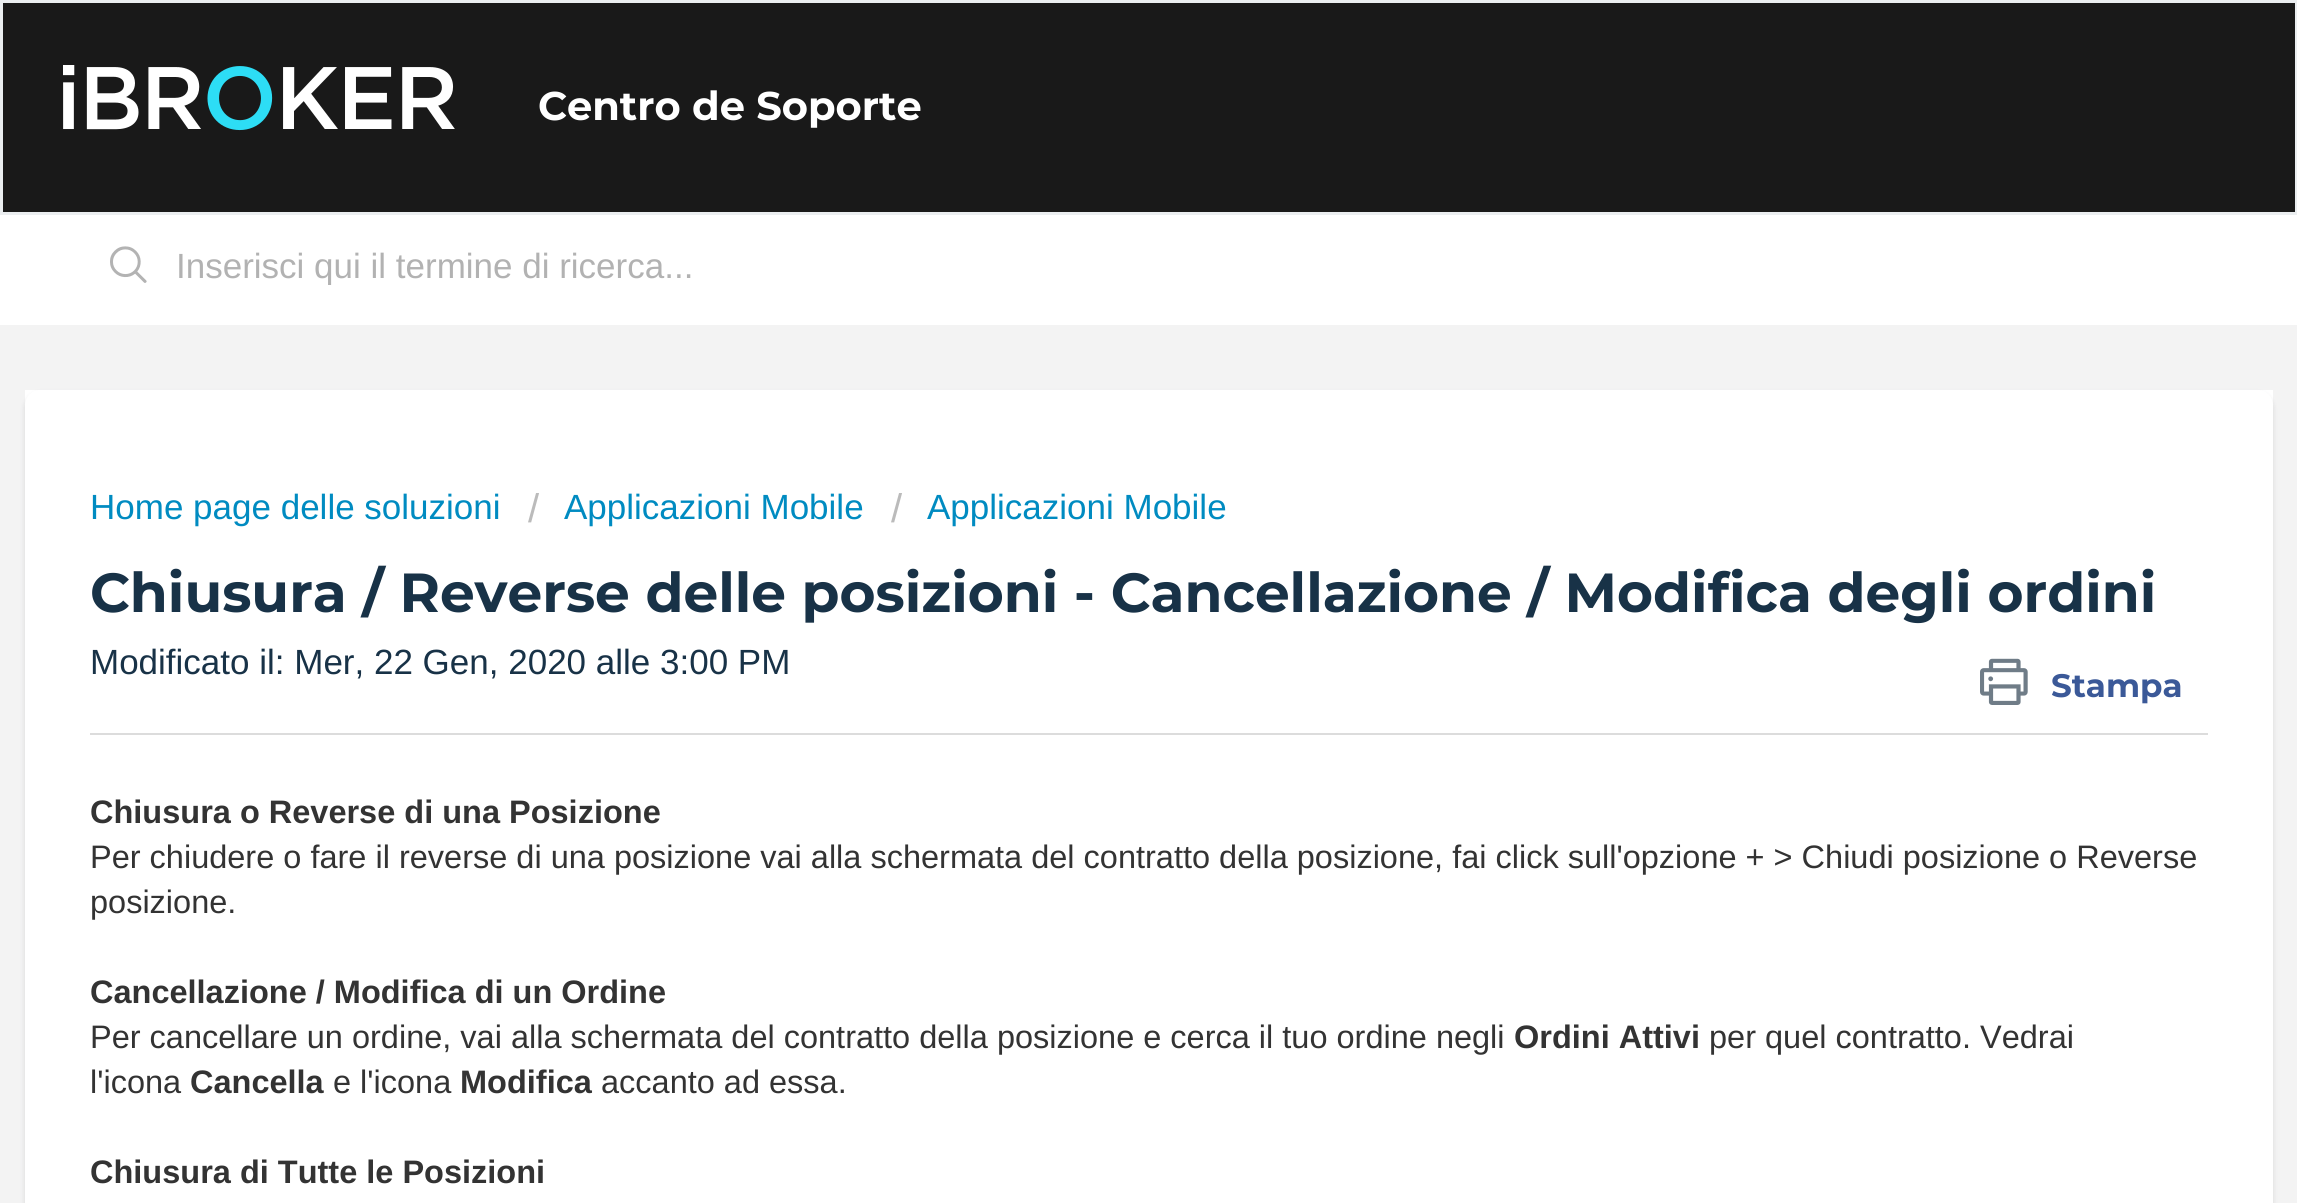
#include <cairo.h>
#include <math.h>
#include <stddef.h>


static void set_color(cairo_t *cr, unsigned color) {
    cairo_set_source_rgb(cr, (color >> 16) / 255.0, (color >> 8 & 255) / 255.0, (color & 255) / 255.0);
}

static void draw_text(cairo_t *cr, double x, double y, const char *s, const char *family, double size, int italic, int bold, unsigned color) {
    cairo_select_font_face(cr, family, italic ? CAIRO_FONT_SLANT_ITALIC : CAIRO_FONT_SLANT_NORMAL,
        bold ? CAIRO_FONT_WEIGHT_BOLD : CAIRO_FONT_WEIGHT_NORMAL);
    cairo_set_font_size(cr, size);
    set_color(cr, color);
    cairo_move_to(cr, x, y);
    cairo_show_text(cr, s);
}

static void fill_rect(cairo_t *cr, double x, double y, double w, double h, unsigned color) {
    set_color(cr, color);
    cairo_rectangle(cr, x, y, w, h);
    cairo_fill(cr);
}

static void rounded_rect(cairo_t *cr, double x, double y, double w, double h, double r) {
    cairo_new_sub_path(cr);
    cairo_arc(cr, x + w - r, y + h - r, r, 0, M_PI / 2);
    cairo_arc(cr, x + r, y + h - r, r, M_PI / 2, M_PI);
    cairo_arc(cr, x + r, y + r, r, M_PI, 1.5 * M_PI);
    cairo_arc(cr, x + w - r, y + r, r, 1.5 * M_PI, 2 * M_PI);
    cairo_close_path(cr);
}

static void draw_shadow(cairo_t *cr, double x, double y, double w, double h, double r, double blur, double alpha) {
    cairo_push_group_with_content(cr, CAIRO_CONTENT_ALPHA);
    cairo_set_operator(cr, CAIRO_OPERATOR_SOURCE);
    for (int i = 15; i >= -15 && fmin(w, h) + blur * i / 3 > 0; i -= 2) {
        double e = blur * i / 6;
        cairo_set_source_rgba(cr, 0, 0, 0, alpha * erfc((i - 1) / 8.5) / 2);
        rounded_rect(cr, x - e, y - e, w + 2 * e, h + 2 * e, fmax(0, fmin(r + e + blur * .6, fmin(w, h) / 2 + e)));
        cairo_fill(cr);
    }
    cairo_pattern_t *soft = cairo_pop_group(cr);
    cairo_mask(cr, soft);
    cairo_pattern_destroy(soft);
}

static void draw_image(cairo_t *cr, const char *path, double x, double y, double w, double h) {
    cairo_surface_t *image = cairo_image_surface_create_from_png(path);
    cairo_save(cr);
    cairo_set_source_surface(cr, image, x, y);
    cairo_rectangle(cr, x, y, w, h);
    cairo_fill(cr);
    cairo_restore(cr);
    cairo_surface_destroy(image);
}

int main(void) {
    cairo_surface_t *surface = cairo_image_surface_create(CAIRO_FORMAT_RGB24, 2297, 1203);
    cairo_t *cr = cairo_create(surface);
    cairo_font_options_t *options = cairo_font_options_create();
    cairo_font_options_set_hint_metrics(options, CAIRO_HINT_METRICS_OFF);
    cairo_font_options_set_hint_style(options, CAIRO_HINT_STYLE_NONE);
    cairo_set_font_options(cr, options);
    cairo_set_miter_limit(cr, 4);
    set_color(cr, 0xF3F3F3);
    cairo_paint(cr);
    set_color(cr, 0x191919);
    cairo_rectangle(cr, 1.5, 1.5, 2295, 212);
    cairo_fill_preserve(cr);
    set_color(cr, 0xEBEEF0);
    cairo_set_line_width(cr, 3);
    cairo_stroke(cr);
    draw_image(cr, "assets/img1.png", 63, 65, 392, 66);
    draw_text(cr, 538, 120, "Centro de Soporte", "Montserrat", 40, 0, 1, 0xFFFFFF);
    fill_rect(cr, 0, 215, 2297, 110, 0xFFFFFF);
    draw_image(cr, "assets/img2.png", 110, 246, 37, 37);
    cairo_save(cr);
    cairo_rectangle(cr, 175, 245, 583, 40);
    cairo_clip(cr);
    draw_text(cr, 176, 278, "Inserisci qui il termine di ricerca...", "Liberation Sans", 35, 0, 0, 0xB2B2B2);
    cairo_restore(cr);
    fill_rect(cr, 25, 390, 2248, 15, 0xFFFFFF);
    set_color(cr, 0x3F3F44);
    draw_shadow(cr, 25, 393, 2248, 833, 15, 2.5, 0.15);
    set_color(cr, 0xFFFFFF);
    rounded_rect(cr, 25, 390, 2248, 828, 15);
    cairo_fill(cr);
    draw_text(cr, 90, 519, "Home page delle soluzioni", "Liberation Sans", 35, 0, 0, 0x008BC1);
    draw_text(cr, 528, 522, "/", "Liberation Sans", 40, 0, 0, 0xBBBBBB);
    draw_text(cr, 564, 519, "Applicazioni Mobile", "Liberation Sans", 35, 0, 0, 0x008BC1);
    draw_text(cr, 891, 522, "/", "Liberation Sans", 40, 0, 0, 0xBBBBBB);
    draw_text(cr, 927, 519, "Applicazioni Mobile", "Liberation Sans", 35, 0, 0, 0x008BC1);
    draw_text(cr, 90, 612, "Chiusura / Reverse delle posizioni - Cancellazione / Modifica degli ordini", "Montserrat", 55, 0, 1, 0x183247);
    draw_image(cr, "assets/img3.png", 1980, 658, 48, 47);
    draw_text(cr, 2051, 697, "Stampa", "Montserrat", 32.5, 0, 1, 0x3B5998);
    draw_text(cr, 90, 674, "Modificato il: Mer, 22 Gen, 2020 alle 3:00 PM", "Liberation Sans", 35, 0, 0, 0x183247);
    fill_rect(cr, 90, 733, 2118, 2, 0xDCDCDC);
    draw_text(cr, 90, 823, "Chiusura o Reverse di una Posizione", "Liberation Sans", 32.5, 0, 1, 0x333333);
    draw_text(cr, 90, 868, "Per chiudere o fare il reverse di una posizione vai alla schermata del contratto della posizione, fai click sull'opzione + > Chiudi posizione o Reverse", "Liberation Sans", 32.5, 0, 0, 0x333333);
    draw_text(cr, 90, 913, "posizione.", "Liberation Sans", 32.5, 0, 0, 0x333333);
    draw_text(cr, 90, 1003, "Cancellazione / Modifica di un Ordine", "Liberation Sans", 32.5, 0, 1, 0x333333);
    draw_text(cr, 90, 1048, "Per cancellare un ordine, vai alla schermata del contratto della posizione e cerca il tuo ordine negli", "Liberation Sans", 32.5, 0, 0, 0x333333);
    draw_text(cr, 1514, 1048, "Ordini Attivi", "Liberation Sans", 32.5, 0, 1, 0x333333);
    draw_text(cr, 1709, 1048, "per quel contratto. Vedrai", "Liberation Sans", 32.5, 0, 0, 0x333333);
    draw_text(cr, 90, 1093, "l'icona", "Liberation Sans", 32.5, 0, 0, 0x333333);
    draw_text(cr, 190, 1093, "Cancella", "Liberation Sans", 32.5, 0, 1, 0x333333);
    draw_text(cr, 333, 1093, "e l'icona", "Liberation Sans", 32.5, 0, 0, 0x333333);
    draw_text(cr, 460, 1093, "Modifica", "Liberation Sans", 32.5, 0, 1, 0x333333);
    draw_text(cr, 601, 1093, "accanto ad essa.", "Liberation Sans", 32.5, 0, 0, 0x333333);
    draw_text(cr, 90, 1183, "Chiusura di Tutte le Posizioni", "Liberation Sans", 32.5, 0, 1, 0x333333);
    cairo_surface_write_to_png(surface, "output.png");
    cairo_font_options_destroy(options);
    cairo_destroy(cr);
    cairo_surface_destroy(surface);
    return 0;
}
